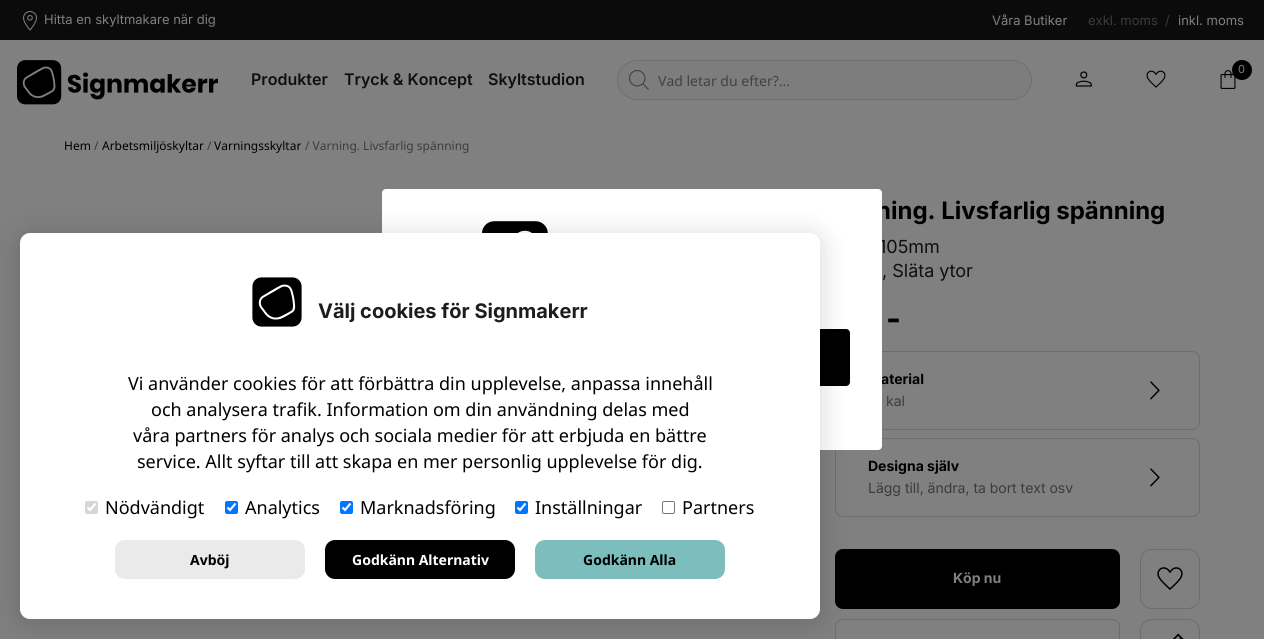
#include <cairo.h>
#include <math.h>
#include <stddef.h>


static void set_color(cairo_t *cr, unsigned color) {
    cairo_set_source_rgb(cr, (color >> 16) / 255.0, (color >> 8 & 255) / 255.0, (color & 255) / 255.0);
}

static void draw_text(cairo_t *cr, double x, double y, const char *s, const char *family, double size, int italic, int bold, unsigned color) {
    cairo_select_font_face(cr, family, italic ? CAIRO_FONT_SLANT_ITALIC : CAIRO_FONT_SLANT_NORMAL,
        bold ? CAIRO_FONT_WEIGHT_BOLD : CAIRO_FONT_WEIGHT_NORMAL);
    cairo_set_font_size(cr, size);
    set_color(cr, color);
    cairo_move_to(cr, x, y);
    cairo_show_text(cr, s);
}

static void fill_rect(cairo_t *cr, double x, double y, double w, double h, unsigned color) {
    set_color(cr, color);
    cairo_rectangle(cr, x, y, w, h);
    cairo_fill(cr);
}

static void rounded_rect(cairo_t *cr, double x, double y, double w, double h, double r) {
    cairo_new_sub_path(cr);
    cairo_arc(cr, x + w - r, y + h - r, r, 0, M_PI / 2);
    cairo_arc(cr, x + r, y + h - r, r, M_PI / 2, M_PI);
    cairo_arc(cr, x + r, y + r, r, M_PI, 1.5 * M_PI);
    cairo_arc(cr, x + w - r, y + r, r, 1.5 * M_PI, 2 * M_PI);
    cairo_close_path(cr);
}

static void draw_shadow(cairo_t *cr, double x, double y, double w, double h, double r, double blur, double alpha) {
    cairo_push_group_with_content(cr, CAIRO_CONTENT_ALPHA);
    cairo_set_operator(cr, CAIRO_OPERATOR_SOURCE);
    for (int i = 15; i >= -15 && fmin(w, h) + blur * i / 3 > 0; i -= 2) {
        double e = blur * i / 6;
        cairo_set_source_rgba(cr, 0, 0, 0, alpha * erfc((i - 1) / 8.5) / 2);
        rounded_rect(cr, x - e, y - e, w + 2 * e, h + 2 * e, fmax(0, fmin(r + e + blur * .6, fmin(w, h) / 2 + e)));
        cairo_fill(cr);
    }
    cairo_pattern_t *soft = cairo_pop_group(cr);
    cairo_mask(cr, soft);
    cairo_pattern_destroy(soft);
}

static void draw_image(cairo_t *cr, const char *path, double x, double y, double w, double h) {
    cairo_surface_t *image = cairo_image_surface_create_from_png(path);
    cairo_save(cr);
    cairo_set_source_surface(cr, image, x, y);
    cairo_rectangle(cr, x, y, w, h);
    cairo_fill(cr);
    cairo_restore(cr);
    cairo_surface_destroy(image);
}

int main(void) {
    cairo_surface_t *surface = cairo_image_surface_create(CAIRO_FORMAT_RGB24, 1264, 639);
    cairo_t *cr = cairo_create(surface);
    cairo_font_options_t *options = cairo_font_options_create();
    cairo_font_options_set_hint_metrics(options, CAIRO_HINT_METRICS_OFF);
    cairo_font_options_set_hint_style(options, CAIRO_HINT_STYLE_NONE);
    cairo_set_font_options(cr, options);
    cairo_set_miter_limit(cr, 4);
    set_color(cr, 0x808080);
    cairo_paint(cr);
    fill_rect(cr, 0, 0, 1264, 40, 0x0B0B0C);
    draw_image(cr, "assets/img1.png", 23, 11, 14, 20);
    draw_text(cr, 44, 24, "Hitta en skyltmakare när dig", "Inter", 13, 0, 0, 0x808080);
    draw_text(cr, 992, 25, "Våra Butiker", "Inter", 13, 0, 0, 0x808080);
    draw_text(cr, 1088, 25, "exkl. moms", "Inter", 13, 0, 0, 0x3B3B3B);
    draw_text(cr, 1165, 25, "/", "Inter", 13, 0, 0, 0x3B3B3B);
    draw_text(cr, 1178, 25, "inkl. moms", "Inter", 13, 0, 0, 0x808080);
    draw_image(cr, "assets/img2.png", 17, 60, 201, 45);
    draw_image(cr, "assets/img3.png", 1220, 70, 16, 19);
    set_color(cr, 0x000000);
    cairo_arc(cr, 1242, 70, 10, 0, 2 * M_PI);
    cairo_fill(cr);
    draw_text(cr, 1238, 73, "0", "Inter", 11, 0, 0, 0x808080);
    draw_image(cr, "assets/img4.png", 1075, 71, 17, 16);
    draw_image(cr, "assets/img5.png", 1146, 70, 20, 18);
    draw_text(cr, 251, 85, "Produkter", "Inter SemiBold", 16, 0, 0, 0x0F0F10);
    draw_text(cr, 344, 85, "Tryck & Koncept", "Inter SemiBold", 16, 0, 0, 0x0F0F10);
    draw_text(cr, 488, 85, "Skyltstudion", "Inter SemiBold", 16, 0, 0, 0x0F0F10);
    set_color(cr, 0x7D7D7D);
    rounded_rect(cr, 617.5, 60.5, 414, 39, 19.5);
    cairo_fill_preserve(cr);
    set_color(cr, 0x6F6F6F);
    cairo_set_line_width(cr, 1);
    cairo_stroke(cr);
    draw_image(cr, "assets/img6.png", 629, 70, 20, 20);
    draw_text(cr, 658, 86, "Vad letar du efter?...", "Noto Sans", 14, 0, 0, 0x414141);
    draw_text(cr, 64, 150, "Hem", "Noto Sans", 12, 0, 0, 0x000000);
    draw_text(cr, 94, 150, "/", "Noto Sans", 12, 0, 0, 0x3B3B3B);
    draw_text(cr, 102, 150, "Arbetsmiljöskyltar", "Noto Sans", 12, 0, 0, 0x000000);
    draw_text(cr, 207, 150, "/", "Noto Sans", 12, 0, 0, 0x3B3B3B);
    draw_text(cr, 214, 150, "Varningsskyltar", "Noto Sans", 12, 0, 0, 0x000000);
    draw_text(cr, 305, 150, "/ Varning. Livsfarlig spänning", "Noto Sans", 12, 0, 0, 0x3B3B3B);
    draw_text(cr, 876, 219, "ning. Livsfarlig spänning", "Inter", 24, 0, 1, 0x000000);
    draw_text(cr, 879, 253, "105mm", "Inter", 18, 0, 0, 0x0F0F10);
    rounded_rect(cr, 835.5, 351.5, 364, 78, 7.5);
    set_color(cr, 0x6D6D6D);
    cairo_stroke(cr);
    draw_text(cr, 881, 384, "aterial", "Inter", 14, 0, 1, 0x000000);
    rounded_rect(cr, 835.5, 438.5, 364, 78, 7.5);
    set_color(cr, 0x6D6D6D);
    cairo_stroke(cr);
    set_color(cr, 0xFFFFFF);
    rounded_rect(cr, 382, 189, 500, 261, 4);
    cairo_fill(cr);
    draw_image(cr, "assets/img7.png", 482, 221, 66, 12);
    set_color(cr, 0x000000);
    rounded_rect(cr, 642, 329, 208, 57, 4);
    cairo_fill(cr);
    draw_text(cr, 882, 277, ", Släta ytor", "Inter", 18, 0, 0, 0x0F0F10);
    draw_text(cr, 886, 330, "-", "Inter", 32, 0, 1, 0x000000);
    draw_text(cr, 886, 406, "kal", "Inter", 14, 0, 0, 0x3B3B3B);
    draw_image(cr, "assets/img8.png", 1150, 381, 10, 19);
    draw_text(cr, 868, 471, "Designa själv", "Inter", 14, 0, 1, 0x000000);
    draw_text(cr, 868, 493, "Lägg till, ändra, ta bort text osv", "Inter", 14, 0, 0, 0x3B3B3B);
    draw_image(cr, "assets/img8.png", 1150, 468, 10, 19);
    set_color(cr, 0x000000);
    rounded_rect(cr, 835, 549, 285, 60, 8);
    cairo_fill(cr);
    draw_text(cr, 953, 583, "Köp nu", "Inter", 14, 0, 1, 0x808080);
    rounded_rect(cr, 835.5, 619.5, 284, 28, 7.5);
    set_color(cr, 0x6D6D6D);
    cairo_stroke(cr);
    rounded_rect(cr, 1140.5, 549.5, 59, 59, 11.5);
    cairo_stroke(cr);
    draw_image(cr, "assets/img9.png", 1157, 567, 26, 23);
    rounded_rect(cr, 1140.5, 619.5, 59, 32, 11.5);
    cairo_stroke(cr);
    draw_image(cr, "assets/img10.png", 1172, 633, 12, 6);
    set_color(cr, 0x000000);
    draw_shadow(cr, 20, 236, 800, 386, 10, 15, 0.16);
    set_color(cr, 0xFFFFFF);
    rounded_rect(cr, 20, 233, 800, 386, 10);
    cairo_fill(cr);
    draw_image(cr, "assets/img11.png", 252, 277, 50, 50);
    draw_text(cr, 318, 318, "Välj cookies för Signmakerr", "Inter", 20, 0, 1, 0x1D1D1F);
    draw_text(cr, 128, 390, "Vi använder cookies för att förbättra din upplevelse, anpassa innehåll", "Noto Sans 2", 18, 0, 0, 0x000000);
    draw_text(cr, 151, 416, "och analysera trafik. Information om din användning delas med", "Noto Sans 2", 18, 0, 0, 0x000000);
    draw_text(cr, 133, 442, "våra partners för analys och sociala medier för att erbjuda en bättre", "Noto Sans 2", 18, 0, 0, 0x000000);
    draw_text(cr, 137, 468, "service. Allt syftar till att skapa en mer personlig upplevelse för dig.", "Noto Sans 2", 18, 0, 0, 0x000000);
    set_color(cr, 0xD6D6D6);
    rounded_rect(cr, 85, 501, 13, 13, 2);
    cairo_fill(cr);
    cairo_new_path(cr);
    cairo_move_to(cr, 87.5, 507.5);
    cairo_line_to(cr, 90, 510);
    cairo_line_to(cr, 95.5, 503.5);
    set_color(cr, 0xFFFFFF);
    cairo_set_line_width(cr, 2.1);
    cairo_stroke(cr);
    draw_text(cr, 105, 514, "Nödvändigt", "Noto Sans 2", 18, 0, 0, 0x000000);
    set_color(cr, 0x0075FF);
    rounded_rect(cr, 225, 501, 13, 13, 2);
    cairo_fill(cr);
    cairo_new_path(cr);
    cairo_move_to(cr, 227.5, 507.5);
    cairo_line_to(cr, 230, 510);
    cairo_line_to(cr, 235.5, 503.5);
    set_color(cr, 0xFFFFFF);
    cairo_stroke(cr);
    draw_text(cr, 245, 514, "Analytics", "Noto Sans 2", 18, 0, 0, 0x000000);
    set_color(cr, 0x0075FF);
    rounded_rect(cr, 340, 501, 13, 13, 2);
    cairo_fill(cr);
    cairo_new_path(cr);
    cairo_move_to(cr, 342.5, 507.5);
    cairo_line_to(cr, 345, 510);
    cairo_line_to(cr, 350.5, 503.5);
    set_color(cr, 0xFFFFFF);
    cairo_stroke(cr);
    draw_text(cr, 360, 514, "Marknadsföring", "Noto Sans 2", 18, 0, 0, 0x000000);
    set_color(cr, 0x0075FF);
    rounded_rect(cr, 515, 501, 13, 13, 2);
    cairo_fill(cr);
    cairo_new_path(cr);
    cairo_move_to(cr, 517.5, 507.5);
    cairo_line_to(cr, 520, 510);
    cairo_line_to(cr, 525.5, 503.5);
    set_color(cr, 0xFFFFFF);
    cairo_stroke(cr);
    draw_text(cr, 535, 514, "Inställningar", "Noto Sans 2", 18, 0, 0, 0x000000);
    rounded_rect(cr, 662.5, 501.5, 12, 12, 1.5);
    set_color(cr, 0x767676);
    cairo_set_line_width(cr, 1);
    cairo_stroke(cr);
    draw_text(cr, 682, 514, "Partners", "Noto Sans 2", 18, 0, 0, 0x000000);
    set_color(cr, 0xEAEAEA);
    rounded_rect(cr, 115, 540, 190, 39, 10);
    cairo_fill(cr);
    draw_text(cr, 190, 565, "Avböj", "Noto Sans", 14, 0, 1, 0x000000);
    rounded_rect(cr, 325, 540, 190, 39, 10);
    cairo_fill(cr);
    draw_text(cr, 352, 565, "Godkänn Alternativ", "Noto Sans", 14, 0, 1, 0xFFFFFF);
    set_color(cr, 0x7BBEBD);
    rounded_rect(cr, 535, 540, 190, 39, 10);
    cairo_fill(cr);
    draw_text(cr, 583, 565, "Godkänn Alla", "Noto Sans", 14, 0, 1, 0x000000);
    cairo_surface_write_to_png(surface, "output.png");
    cairo_font_options_destroy(options);
    cairo_destroy(cr);
    cairo_surface_destroy(surface);
    return 0;
}
